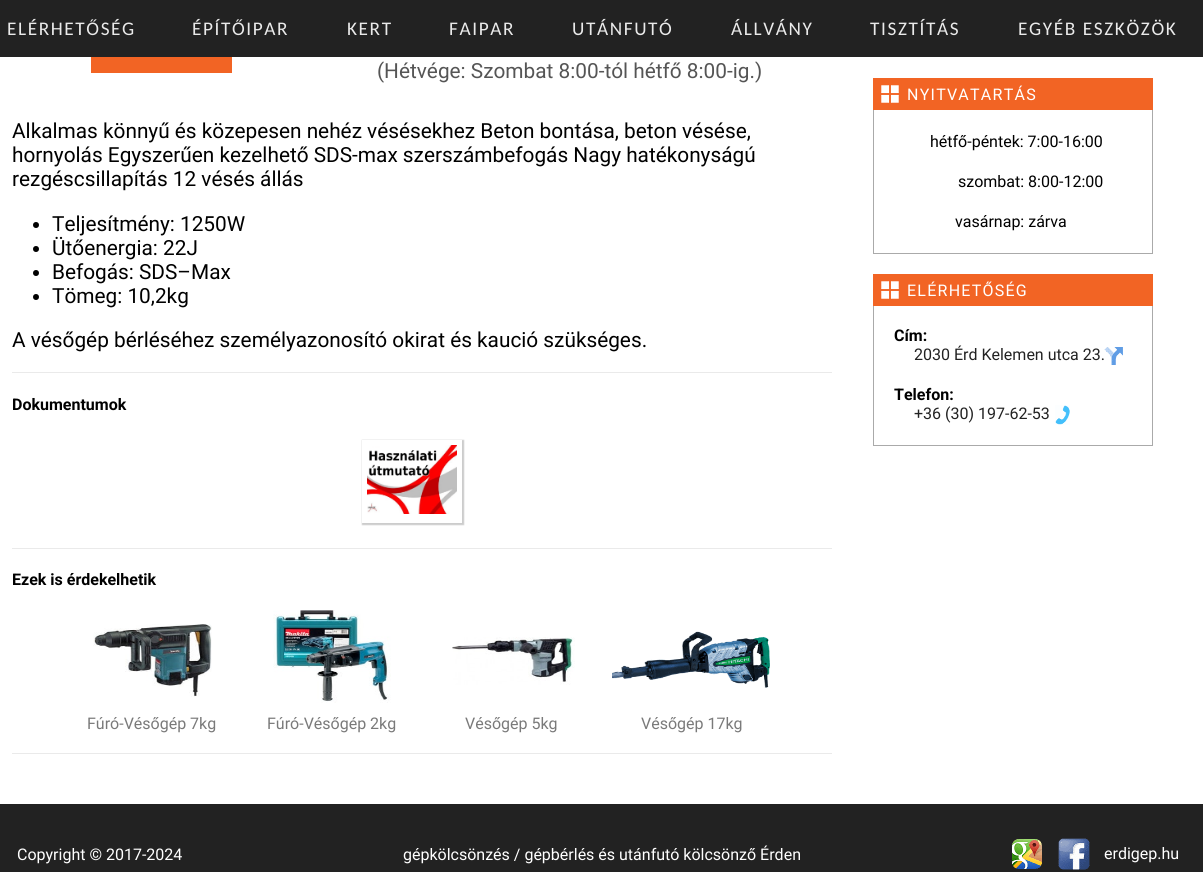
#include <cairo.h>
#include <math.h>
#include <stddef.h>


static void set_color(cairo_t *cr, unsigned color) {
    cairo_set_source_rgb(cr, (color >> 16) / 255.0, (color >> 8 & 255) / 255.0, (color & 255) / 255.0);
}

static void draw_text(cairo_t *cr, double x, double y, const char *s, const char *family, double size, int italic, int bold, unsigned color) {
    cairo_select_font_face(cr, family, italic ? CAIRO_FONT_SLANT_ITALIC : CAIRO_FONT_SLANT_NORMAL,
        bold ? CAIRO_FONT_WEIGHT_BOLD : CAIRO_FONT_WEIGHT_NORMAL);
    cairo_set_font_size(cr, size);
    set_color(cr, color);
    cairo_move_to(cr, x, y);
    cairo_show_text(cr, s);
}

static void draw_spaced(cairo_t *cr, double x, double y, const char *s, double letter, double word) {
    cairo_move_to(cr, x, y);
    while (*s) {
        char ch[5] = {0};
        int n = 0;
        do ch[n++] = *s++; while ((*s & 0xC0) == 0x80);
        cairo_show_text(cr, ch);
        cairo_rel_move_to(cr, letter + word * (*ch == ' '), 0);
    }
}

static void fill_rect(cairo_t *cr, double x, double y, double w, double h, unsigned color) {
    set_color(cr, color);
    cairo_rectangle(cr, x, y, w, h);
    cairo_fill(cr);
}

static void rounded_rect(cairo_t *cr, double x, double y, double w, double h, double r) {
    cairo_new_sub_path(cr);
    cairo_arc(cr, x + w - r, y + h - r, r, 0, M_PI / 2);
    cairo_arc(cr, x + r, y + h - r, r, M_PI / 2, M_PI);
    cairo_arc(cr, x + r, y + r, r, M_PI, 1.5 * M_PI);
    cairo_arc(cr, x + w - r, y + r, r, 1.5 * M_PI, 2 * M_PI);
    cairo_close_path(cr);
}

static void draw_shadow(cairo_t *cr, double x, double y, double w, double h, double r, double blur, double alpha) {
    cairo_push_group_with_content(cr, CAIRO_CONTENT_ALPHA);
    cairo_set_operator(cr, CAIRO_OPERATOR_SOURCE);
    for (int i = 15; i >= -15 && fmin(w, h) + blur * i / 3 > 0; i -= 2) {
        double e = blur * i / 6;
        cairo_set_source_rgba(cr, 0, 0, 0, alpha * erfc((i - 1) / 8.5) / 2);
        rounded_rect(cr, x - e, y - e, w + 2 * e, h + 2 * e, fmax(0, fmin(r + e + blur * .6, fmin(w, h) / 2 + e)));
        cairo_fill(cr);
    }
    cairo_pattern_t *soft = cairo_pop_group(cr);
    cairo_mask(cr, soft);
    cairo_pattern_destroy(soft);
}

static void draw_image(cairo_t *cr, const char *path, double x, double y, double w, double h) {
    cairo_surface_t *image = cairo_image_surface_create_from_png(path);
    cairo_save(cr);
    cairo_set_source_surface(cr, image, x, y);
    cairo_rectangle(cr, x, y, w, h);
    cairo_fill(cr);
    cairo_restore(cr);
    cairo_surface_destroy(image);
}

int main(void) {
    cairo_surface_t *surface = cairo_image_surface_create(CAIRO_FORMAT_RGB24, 1203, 872);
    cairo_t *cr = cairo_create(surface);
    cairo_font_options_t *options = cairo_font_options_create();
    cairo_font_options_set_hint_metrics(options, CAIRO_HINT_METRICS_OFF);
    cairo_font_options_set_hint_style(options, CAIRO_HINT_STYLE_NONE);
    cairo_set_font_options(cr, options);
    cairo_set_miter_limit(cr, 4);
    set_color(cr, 0xFFFFFF);
    cairo_paint(cr);
    fill_rect(cr, 0, 0, 1203, 57, 0x222222);
    cairo_select_font_face(cr, "Carlito", CAIRO_FONT_SLANT_NORMAL, CAIRO_FONT_WEIGHT_NORMAL);
    cairo_set_font_size(cr, 19.25);
    set_color(cr, 0xEAEAEA);
    draw_spaced(cr, 7, 35, "ELÉRHETŐSÉG", 1.6, 0);
    draw_spaced(cr, 192, 35, "ÉPÍTŐIPAR", 1.6, 0);
    draw_spaced(cr, 347, 35, "KERT", 1.6, 0);
    draw_spaced(cr, 449, 35, "FAIPAR", 1.6, 0);
    draw_spaced(cr, 572, 35, "UTÁNFUTÓ", 1.6, 0);
    draw_spaced(cr, 731, 35, "ÁLLVÁNY", 1.6, 0);
    draw_spaced(cr, 870, 35, "TISZTÍTÁS", 1.6, 0);
    draw_spaced(cr, 1018, 35, "EGYÉB ESZKÖZÖK", 1.6, 0);
    fill_rect(cr, 12, 372, 820, 1, 0xEAEAEA);
    fill_rect(cr, 91, 57, 141, 16, 0xF26424);
    draw_text(cr, 377, 78, "(Hétvége: Szombat 8:00-tól hétfő 8:00-ig.)", "Roboto", 20.8, 0, 0, 0x555555);
    draw_text(cr, 12, 138, "Alkalmas könnyű és közepesen nehéz vésésekhez Beton bontása, beton vésése,", "Roboto", 20.8, 0, 0, 0x000000);
    draw_text(cr, 12, 162, "hornyolás Egyszerűen kezelhető SDS-max szerszámbefogás Nagy hatékonyságú", "Roboto", 20.8, 0, 0, 0x000000);
    draw_text(cr, 12, 186, "rezgéscsillapítás 12 vésés állás", "Roboto", 20.8, 0, 0, 0x000000);
    cairo_new_path(cr);
    cairo_arc(cr, 36, 225, 3, 0, 2 * M_PI);
    cairo_fill(cr);
    draw_text(cr, 52, 231, "Teljesítmény: 1250W", "Roboto", 20.8, 0, 0, 0x000000);
    cairo_new_path(cr);
    cairo_arc(cr, 36, 249, 3, 0, 2 * M_PI);
    cairo_fill(cr);
    draw_text(cr, 52, 255, "Ütőenergia: 22J", "Roboto", 20.8, 0, 0, 0x000000);
    cairo_new_path(cr);
    cairo_arc(cr, 36, 273, 3, 0, 2 * M_PI);
    cairo_fill(cr);
    draw_text(cr, 52, 279, "Befogás: SDS–Max", "Roboto", 20.8, 0, 0, 0x000000);
    cairo_new_path(cr);
    cairo_arc(cr, 36, 297, 3, 0, 2 * M_PI);
    cairo_fill(cr);
    draw_text(cr, 52, 303, "Tömeg: 10,2kg", "Roboto", 20.8, 0, 0, 0x000000);
    draw_text(cr, 12, 347, "A vésőgép bérléséhez személyazonosító okirat és kaució szükséges.", "Roboto", 20.8, 0, 0, 0x000000);
    fill_rect(cr, 12, 548, 820, 1, 0xEAEAEA);
    draw_text(cr, 12, 410, "Dokumentumok", "Roboto", 16, 0, 1, 0x000000);
    cairo_save(cr);
    cairo_set_fill_rule(cr, CAIRO_FILL_RULE_EVEN_ODD);
    cairo_new_path(cr);
    cairo_move_to(cr, 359, 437);
    cairo_line_to(cr, 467, 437);
    cairo_line_to(cr, 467, 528);
    cairo_line_to(cr, 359, 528);
    cairo_close_path(cr);
    cairo_move_to(cr, 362, 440);
    cairo_line_to(cr, 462, 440);
    cairo_line_to(cr, 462, 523);
    cairo_line_to(cr, 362, 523);
    cairo_close_path(cr);
    cairo_clip(cr);
    set_color(cr, 0xCCCCCC);
    draw_shadow(cr, 362, 440, 102, 85, 0, 0.5, 1);
    cairo_restore(cr);
    draw_image(cr, "assets/img1.png", 367, 445, 90, 69);
    fill_rect(cr, 12, 753, 820, 1, 0xEAEAEA);
    draw_text(cr, 12, 585, "Ezek is érdekelhetik", "Roboto", 16, 0, 1, 0x000000);
    draw_image(cr, "assets/img2.png", 93, 624, 119, 73);
    draw_text(cr, 87, 729, "Fúró-Vésőgép 7kg", "Roboto", 16, 0, 0, 0x7A7A7A);
    draw_image(cr, "assets/img3.png", 273, 610, 118, 93);
    draw_text(cr, 267, 729, "Fúró-Vésőgép 2kg", "Roboto", 16, 0, 0, 0x7A7A7A);
    draw_image(cr, "assets/img4.png", 452, 637, 123, 48);
    draw_text(cr, 465, 729, "Vésőgép 5kg", "Roboto", 16, 0, 0, 0x7A7A7A);
    draw_image(cr, "assets/img5.png", 612, 631, 158, 57);
    draw_text(cr, 641, 729, "Vésőgép 17kg", "Roboto", 16, 0, 0, 0x7A7A7A);
    fill_rect(cr, 873, 78, 280, 32, 0xF26424);
    draw_image(cr, "assets/img6.png", 881, 85, 18, 18);
    set_color(cr, 0xFFFFFF);
    draw_spaced(cr, 907, 100, "NYITVATARTÁS", 1.25, 0);
    fill_rect(cr, 1152, 110, 1, 144, 0xAAAAAA);
    fill_rect(cr, 873, 253, 280, 1, 0xAAAAAA);
    fill_rect(cr, 873, 110, 1, 144, 0xAAAAAA);
    draw_text(cr, 930, 147, "hétfő-péntek: 7:00-16:00", "Roboto", 16, 0, 0, 0x000000);
    draw_text(cr, 958, 187, "szombat: 8:00-12:00", "Roboto", 16, 0, 0, 0x000000);
    draw_text(cr, 955, 227, "vasárnap: zárva", "Roboto", 16, 0, 0, 0x000000);
    fill_rect(cr, 873, 274, 280, 32, 0xF26424);
    draw_image(cr, "assets/img6.png", 881, 281, 18, 18);
    set_color(cr, 0xFFFFFF);
    draw_spaced(cr, 907, 296, "ELÉRHETŐSÉG", 1.25, 0);
    fill_rect(cr, 1152, 306, 1, 140, 0xAAAAAA);
    fill_rect(cr, 873, 445, 280, 1, 0xAAAAAA);
    fill_rect(cr, 873, 306, 1, 140, 0xAAAAAA);
    draw_text(cr, 894, 341, "Cím:", "Roboto", 16, 0, 1, 0x000000);
    draw_text(cr, 914, 360, "2030 Érd Kelemen utca 23.", "Roboto", 16, 0, 0, 0x222222);
    draw_image(cr, "assets/img7.png", 1104, 347, 19, 18);
    draw_text(cr, 894, 400, "Telefon:", "Roboto", 16, 0, 1, 0x000000);
    draw_text(cr, 914, 419, "+36 (30) 197-62-53", "Roboto", 16, 0, 0, 0x222222);
    draw_image(cr, "assets/img8.png", 1055, 405, 15, 20);
    fill_rect(cr, 0, 804, 1203, 68, 0x222222);
    draw_text(cr, 17, 860, "Copyright © 2017-2024", "Roboto", 16, 0, 0, 0xFFFFFF);
    draw_text(cr, 403, 860, "gépkölcsönzés / gépbérlés és utánfutó kölcsönző Érden", "Roboto", 16, 0, 0, 0xFFFFFF);
    draw_image(cr, "assets/img9.png", 1012, 839, 30, 30);
    draw_image(cr, "assets/img10.png", 1058, 838, 32, 32);
    draw_text(cr, 1104, 859, "erdigep.hu", "Roboto", 16, 0, 0, 0xFFFFFF);
    cairo_surface_write_to_png(surface, "output.png");
    cairo_font_options_destroy(options);
    cairo_destroy(cr);
    cairo_surface_destroy(surface);
    return 0;
}
